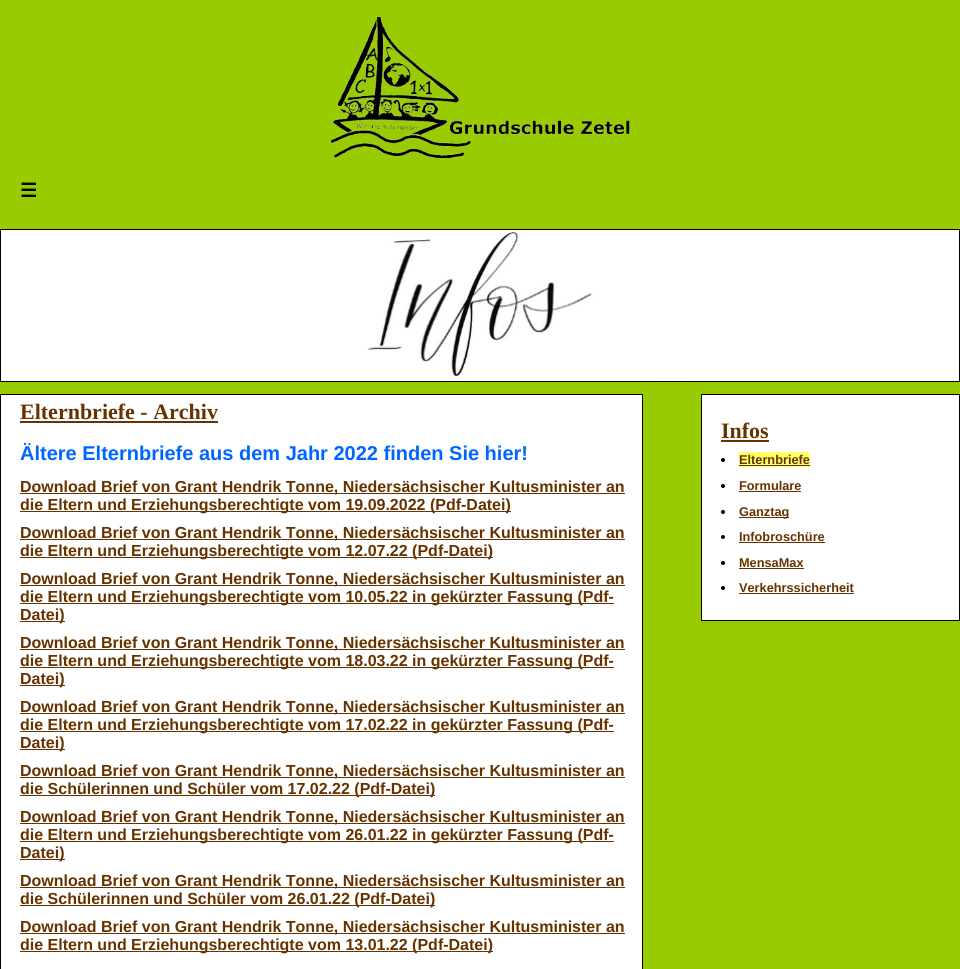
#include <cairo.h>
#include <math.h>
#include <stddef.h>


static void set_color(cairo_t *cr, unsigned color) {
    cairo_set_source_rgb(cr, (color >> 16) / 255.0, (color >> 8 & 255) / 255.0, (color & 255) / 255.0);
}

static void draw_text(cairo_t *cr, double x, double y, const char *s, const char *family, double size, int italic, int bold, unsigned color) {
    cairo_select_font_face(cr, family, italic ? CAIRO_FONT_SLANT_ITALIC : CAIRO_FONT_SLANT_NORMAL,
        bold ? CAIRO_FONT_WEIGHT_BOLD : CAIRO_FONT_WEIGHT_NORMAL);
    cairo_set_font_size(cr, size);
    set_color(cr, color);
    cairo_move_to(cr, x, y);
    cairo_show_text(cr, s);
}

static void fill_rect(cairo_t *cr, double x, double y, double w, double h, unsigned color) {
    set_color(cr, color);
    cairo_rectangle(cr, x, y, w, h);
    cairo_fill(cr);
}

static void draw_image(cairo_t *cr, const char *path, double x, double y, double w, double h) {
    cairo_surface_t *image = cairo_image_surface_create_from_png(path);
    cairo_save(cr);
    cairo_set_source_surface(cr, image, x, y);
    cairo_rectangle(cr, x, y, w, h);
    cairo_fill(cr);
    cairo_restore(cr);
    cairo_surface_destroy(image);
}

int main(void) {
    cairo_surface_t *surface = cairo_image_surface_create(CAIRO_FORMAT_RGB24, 960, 969);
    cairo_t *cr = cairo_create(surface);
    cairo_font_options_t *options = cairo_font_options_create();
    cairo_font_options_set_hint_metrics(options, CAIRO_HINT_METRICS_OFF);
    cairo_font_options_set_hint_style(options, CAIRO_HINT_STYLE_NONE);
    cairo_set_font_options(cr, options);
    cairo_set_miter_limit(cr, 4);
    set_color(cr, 0x99CC00);
    cairo_paint(cr);
    draw_image(cr, "assets/img1.png", 331, 17, 299, 142);
    draw_text(cr, 20, 197, "☰", "DejaVu Sans", 19, 0, 1, 0x000000);
    cairo_rectangle(cr, 0.5, 229.5, 959, 152);
    cairo_set_line_width(cr, 1);
    cairo_stroke(cr);
    draw_image(cr, "assets/img2.png", 1, 230, 958, 151);
    set_color(cr, 0xFFFFFF);
    cairo_rectangle(cr, 0.5, 394.5, 642, 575);
    cairo_fill_preserve(cr);
    set_color(cr, 0x000000);
    cairo_stroke(cr);
    draw_text(cr, 20, 419, "Elternbriefe - Archiv", "Liberation Serif", 22, 0, 1, 0x663300);
    fill_rect(cr, 20, 421, 198, 2, 0x663300);
    draw_text(cr, 20, 460, "Ältere Elternbriefe aus dem Jahr 2022 finden Sie hier!", "Liberation Sans", 20, 0, 1, 0x0066FF);
    fill_rect(cr, 20, 493, 605, 1, 0x663300);
    draw_text(cr, 20, 492, "Download Brief von Grant Hendrik Tonne, Niedersächsischer Kultusminister an", "Liberation Sans", 16, 0, 1, 0x663300);
    fill_rect(cr, 20, 511, 491, 1, 0x663300);
    draw_text(cr, 20, 510, "die Eltern und Erziehungsberechtigte vom 19.09.2022 (Pdf-Datei)", "Liberation Sans", 16, 0, 1, 0x663300);
    fill_rect(cr, 20, 539, 605, 1, 0x663300);
    draw_text(cr, 20, 538, "Download Brief von Grant Hendrik Tonne, Niedersächsischer Kultusminister an", "Liberation Sans", 16, 0, 1, 0x663300);
    fill_rect(cr, 20, 557, 473, 1, 0x663300);
    draw_text(cr, 20, 556, "die Eltern und Erziehungsberechtigte vom 12.07.22 (Pdf-Datei)", "Liberation Sans", 16, 0, 1, 0x663300);
    fill_rect(cr, 20, 585, 605, 1, 0x663300);
    draw_text(cr, 20, 584, "Download Brief von Grant Hendrik Tonne, Niedersächsischer Kultusminister an", "Liberation Sans", 16, 0, 1, 0x663300);
    fill_rect(cr, 20, 603, 594, 1, 0x663300);
    draw_text(cr, 20, 602, "die Eltern und Erziehungsberechtigte vom 10.05.22 in gekürzter Fassung (Pdf-", "Liberation Sans", 16, 0, 1, 0x663300);
    fill_rect(cr, 20, 621, 45, 1, 0x663300);
    draw_text(cr, 20, 620, "Datei)", "Liberation Sans", 16, 0, 1, 0x663300);
    fill_rect(cr, 20, 649, 605, 1, 0x663300);
    draw_text(cr, 20, 648, "Download Brief von Grant Hendrik Tonne, Niedersächsischer Kultusminister an", "Liberation Sans", 16, 0, 1, 0x663300);
    fill_rect(cr, 20, 667, 594, 1, 0x663300);
    draw_text(cr, 20, 666, "die Eltern und Erziehungsberechtigte vom 18.03.22 in gekürzter Fassung (Pdf-", "Liberation Sans", 16, 0, 1, 0x663300);
    fill_rect(cr, 20, 685, 45, 1, 0x663300);
    draw_text(cr, 20, 684, "Datei)", "Liberation Sans", 16, 0, 1, 0x663300);
    fill_rect(cr, 20, 713, 605, 1, 0x663300);
    draw_text(cr, 20, 712, "Download Brief von Grant Hendrik Tonne, Niedersächsischer Kultusminister an", "Liberation Sans", 16, 0, 1, 0x663300);
    fill_rect(cr, 20, 731, 594, 1, 0x663300);
    draw_text(cr, 20, 730, "die Eltern und Erziehungsberechtigte vom 17.02.22 in gekürzter Fassung (Pdf-", "Liberation Sans", 16, 0, 1, 0x663300);
    fill_rect(cr, 20, 749, 45, 1, 0x663300);
    draw_text(cr, 20, 748, "Datei)", "Liberation Sans", 16, 0, 1, 0x663300);
    fill_rect(cr, 20, 777, 605, 1, 0x663300);
    draw_text(cr, 20, 776, "Download Brief von Grant Hendrik Tonne, Niedersächsischer Kultusminister an", "Liberation Sans", 16, 0, 1, 0x663300);
    fill_rect(cr, 20, 795, 415, 1, 0x663300);
    draw_text(cr, 20, 794, "die Schülerinnen und Schüler vom 17.02.22 (Pdf-Datei)", "Liberation Sans", 16, 0, 1, 0x663300);
    fill_rect(cr, 20, 823, 605, 1, 0x663300);
    draw_text(cr, 20, 822, "Download Brief von Grant Hendrik Tonne, Niedersächsischer Kultusminister an", "Liberation Sans", 16, 0, 1, 0x663300);
    fill_rect(cr, 20, 841, 594, 1, 0x663300);
    draw_text(cr, 20, 840, "die Eltern und Erziehungsberechtigte vom 26.01.22 in gekürzter Fassung (Pdf-", "Liberation Sans", 16, 0, 1, 0x663300);
    fill_rect(cr, 20, 859, 45, 1, 0x663300);
    draw_text(cr, 20, 858, "Datei)", "Liberation Sans", 16, 0, 1, 0x663300);
    fill_rect(cr, 20, 887, 605, 1, 0x663300);
    draw_text(cr, 20, 886, "Download Brief von Grant Hendrik Tonne, Niedersächsischer Kultusminister an", "Liberation Sans", 16, 0, 1, 0x663300);
    fill_rect(cr, 20, 905, 415, 1, 0x663300);
    draw_text(cr, 20, 904, "die Schülerinnen und Schüler vom 26.01.22 (Pdf-Datei)", "Liberation Sans", 16, 0, 1, 0x663300);
    fill_rect(cr, 20, 933, 605, 1, 0x663300);
    draw_text(cr, 20, 932, "Download Brief von Grant Hendrik Tonne, Niedersächsischer Kultusminister an", "Liberation Sans", 16, 0, 1, 0x663300);
    fill_rect(cr, 20, 951, 473, 1, 0x663300);
    draw_text(cr, 20, 950, "die Eltern und Erziehungsberechtigte vom 13.01.22 (Pdf-Datei)", "Liberation Sans", 16, 0, 1, 0x663300);
    set_color(cr, 0xFFFFFF);
    cairo_rectangle(cr, 701.5, 394.5, 258, 226);
    cairo_fill_preserve(cr);
    set_color(cr, 0x000000);
    cairo_stroke(cr);
    draw_text(cr, 721, 438, "Infos", "Liberation Serif", 22, 0, 1, 0x663300);
    fill_rect(cr, 721, 440, 48, 2, 0x663300);
    set_color(cr, 0x000000);
    cairo_new_path(cr);
    cairo_arc(cr, 723, 460, 2, 0, 2 * M_PI);
    cairo_fill(cr);
    fill_rect(cr, 739, 452, 71, 15, 0xFFFF66);
    draw_text(cr, 739, 464, "Elternbriefe", "Liberation Sans", 12.75, 0, 1, 0x663300);
    fill_rect(cr, 739, 465, 71, 1, 0x663300);
    set_color(cr, 0x000000);
    cairo_new_path(cr);
    cairo_arc(cr, 723, 486, 2, 0, 2 * M_PI);
    cairo_fill(cr);
    draw_text(cr, 739, 490, "Formulare", "Liberation Sans", 12.75, 0, 1, 0x663300);
    fill_rect(cr, 739, 491, 62, 1, 0x663300);
    set_color(cr, 0x000000);
    cairo_new_path(cr);
    cairo_arc(cr, 723, 512, 2, 0, 2 * M_PI);
    cairo_fill(cr);
    fill_rect(cr, 739, 517, 50, 1, 0x663300);
    draw_text(cr, 739, 516, "Ganztag", "Liberation Sans", 12.75, 0, 1, 0x663300);
    set_color(cr, 0x000000);
    cairo_new_path(cr);
    cairo_arc(cr, 723, 537, 2, 0, 2 * M_PI);
    cairo_fill(cr);
    draw_text(cr, 739, 541, "Infobroschüre", "Liberation Sans", 12.75, 0, 1, 0x663300);
    fill_rect(cr, 739, 542, 86, 1, 0x663300);
    set_color(cr, 0x000000);
    cairo_new_path(cr);
    cairo_arc(cr, 723, 563, 2, 0, 2 * M_PI);
    cairo_fill(cr);
    draw_text(cr, 739, 567, "MensaMax", "Liberation Sans", 12.75, 0, 1, 0x663300);
    fill_rect(cr, 739, 568, 65, 1, 0x663300);
    set_color(cr, 0x000000);
    cairo_new_path(cr);
    cairo_arc(cr, 723, 588, 2, 0, 2 * M_PI);
    cairo_fill(cr);
    draw_text(cr, 739, 592, "Verkehrssicherheit", "Liberation Sans", 12.75, 0, 1, 0x663300);
    fill_rect(cr, 739, 593, 115, 1, 0x663300);
    cairo_surface_write_to_png(surface, "output.png");
    cairo_font_options_destroy(options);
    cairo_destroy(cr);
    cairo_surface_destroy(surface);
    return 0;
}
